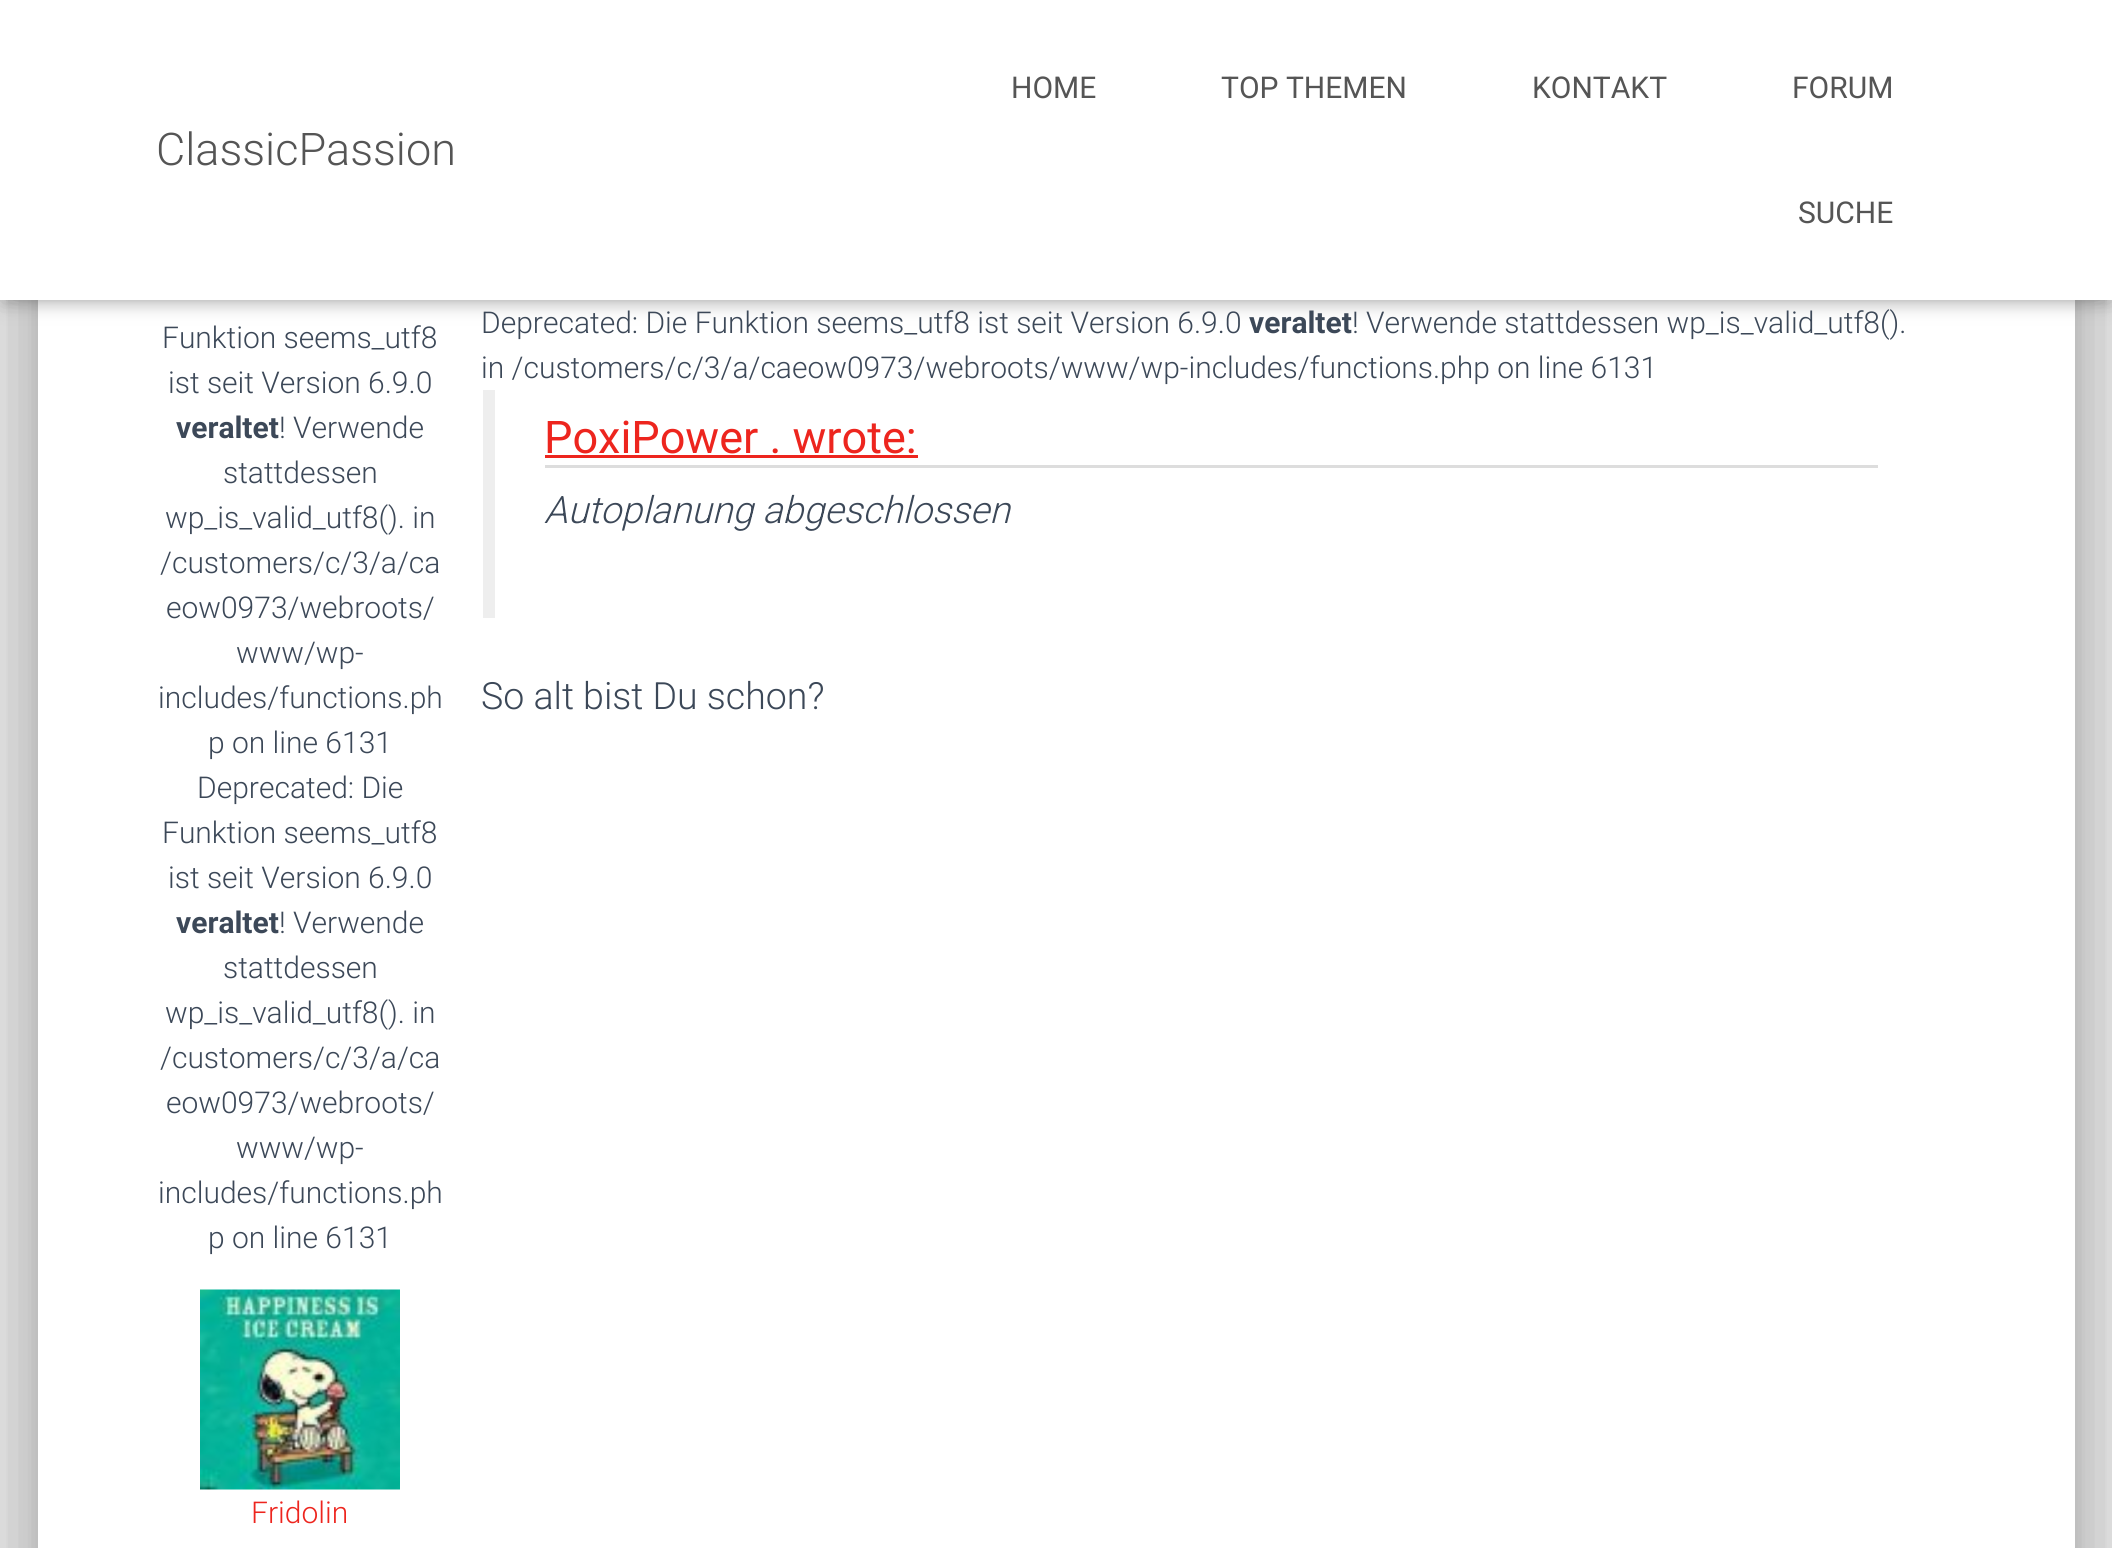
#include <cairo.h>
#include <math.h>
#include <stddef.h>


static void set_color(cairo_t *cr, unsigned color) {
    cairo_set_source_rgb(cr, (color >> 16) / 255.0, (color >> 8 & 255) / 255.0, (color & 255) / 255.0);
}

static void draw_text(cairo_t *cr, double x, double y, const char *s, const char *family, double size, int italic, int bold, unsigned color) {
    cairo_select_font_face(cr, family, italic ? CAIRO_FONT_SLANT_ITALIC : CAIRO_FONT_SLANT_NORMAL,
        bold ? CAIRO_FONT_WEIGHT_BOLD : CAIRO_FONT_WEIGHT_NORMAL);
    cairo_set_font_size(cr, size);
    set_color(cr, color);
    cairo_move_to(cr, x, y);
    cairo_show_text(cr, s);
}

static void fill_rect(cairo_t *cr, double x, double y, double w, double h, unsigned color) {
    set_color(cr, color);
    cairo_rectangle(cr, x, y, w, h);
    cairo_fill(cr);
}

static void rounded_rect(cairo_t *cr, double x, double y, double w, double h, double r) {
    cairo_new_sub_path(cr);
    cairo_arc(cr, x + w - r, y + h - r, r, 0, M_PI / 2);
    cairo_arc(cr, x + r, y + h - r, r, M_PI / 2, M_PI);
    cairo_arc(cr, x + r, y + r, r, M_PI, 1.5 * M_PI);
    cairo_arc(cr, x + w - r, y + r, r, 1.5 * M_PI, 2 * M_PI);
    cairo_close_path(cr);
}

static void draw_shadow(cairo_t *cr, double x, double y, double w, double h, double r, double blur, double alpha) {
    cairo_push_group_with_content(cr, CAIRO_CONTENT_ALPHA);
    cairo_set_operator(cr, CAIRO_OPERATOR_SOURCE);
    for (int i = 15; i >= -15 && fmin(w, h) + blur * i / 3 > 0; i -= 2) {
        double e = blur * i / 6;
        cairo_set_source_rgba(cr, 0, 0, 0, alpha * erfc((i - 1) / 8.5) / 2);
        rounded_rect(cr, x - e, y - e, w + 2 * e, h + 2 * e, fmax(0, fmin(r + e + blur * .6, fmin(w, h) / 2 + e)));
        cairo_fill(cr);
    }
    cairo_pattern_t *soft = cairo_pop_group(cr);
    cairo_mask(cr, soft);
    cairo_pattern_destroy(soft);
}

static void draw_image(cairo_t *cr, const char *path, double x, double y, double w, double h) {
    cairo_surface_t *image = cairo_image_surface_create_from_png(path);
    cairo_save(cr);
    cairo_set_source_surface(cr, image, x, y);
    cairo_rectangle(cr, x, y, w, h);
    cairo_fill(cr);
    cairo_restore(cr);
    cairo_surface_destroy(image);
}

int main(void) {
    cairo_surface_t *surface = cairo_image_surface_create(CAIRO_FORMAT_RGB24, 2112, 1548);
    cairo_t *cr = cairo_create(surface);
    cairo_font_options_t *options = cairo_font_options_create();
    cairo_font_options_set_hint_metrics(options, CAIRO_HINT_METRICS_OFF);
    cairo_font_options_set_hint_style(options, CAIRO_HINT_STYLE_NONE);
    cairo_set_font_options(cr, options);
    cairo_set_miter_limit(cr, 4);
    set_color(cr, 0xE5E5E5);
    cairo_paint(cr);
    set_color(cr, 0x000000);
    draw_shadow(cr, 50, -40, 2013, 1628, 2.5, 12.5, 0.2);
    draw_shadow(cr, 25, -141, 2063, 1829, 28, 37.5, 0.12);
    draw_shadow(cr, 33, -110, 2047, 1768, 20, 30, 0.14);
    fill_rect(cr, 38, 300, 2037, 1248, 0xFFFFFF);
    set_color(cr, 0x000000);
    draw_shadow(cr, 5, 15, 2103, 290, 0, 6, 0.1);
    draw_shadow(cr, 0, 3, 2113, 300, 0, 12.5, 0.12);
    draw_shadow(cr, 15, 18, 2083, 270, 0, 12.5, 0.42);
    fill_rect(cr, 0, 0, 2112, 300, 0xFFFFFF);
    draw_text(cr, 156, 165, "ClassicPassion", "Roboto Light", 45, 0, 0, 0x555555);
    draw_text(cr, 1011, 98, "HOME", "Roboto", 30, 0, 0, 0x555555);
    draw_text(cr, 1221, 98, "TOP THEMEN", "Roboto", 30, 0, 0, 0x555555);
    draw_text(cr, 1532, 98, "KONTAKT", "Roboto", 30, 0, 0, 0x555555);
    draw_text(cr, 1792, 98, "FORUM", "Roboto", 30, 0, 0, 0x555555);
    draw_text(cr, 1798, 223, "SUCHE", "Roboto", 30, 0, 0, 0x555555);
    draw_text(cr, 162, 348, "Funktion seems_utf8", "Roboto Light", 30, 0, 0, 0x3C4858);
    draw_text(cr, 168, 393, "ist seit Version 6.9.0", "Roboto Light", 30, 0, 0, 0x3C4858);
    draw_text(cr, 176, 438, "veraltet", "Roboto", 30, 0, 1, 0x3C4858);
    draw_text(cr, 279, 438, "! Verwende", "Roboto Light", 30, 0, 0, 0x3C4858);
    draw_text(cr, 223, 483, "stattdessen", "Roboto Light", 30, 0, 0, 0x3C4858);
    draw_text(cr, 165, 528, "wp_is_valid_utf8(). in", "Roboto Light", 30, 0, 0, 0x3C4858);
    draw_text(cr, 160, 573, "/customers/c/3/a/ca", "Roboto Light", 30, 0, 0, 0x3C4858);
    draw_text(cr, 166, 618, "eow0973/webroots/", "Roboto Light", 30, 0, 0, 0x3C4858);
    draw_text(cr, 236, 663, "www/wp-", "Roboto Light", 30, 0, 0, 0x3C4858);
    draw_text(cr, 158, 708, "includes/functions.ph", "Roboto Light", 30, 0, 0, 0x3C4858);
    draw_text(cr, 208, 753, "p on line 6131", "Roboto Light", 30, 0, 0, 0x3C4858);
    draw_text(cr, 197, 798, "Deprecated: Die", "Roboto Light", 30, 0, 0, 0x3C4858);
    draw_text(cr, 162, 843, "Funktion seems_utf8", "Roboto Light", 30, 0, 0, 0x3C4858);
    draw_text(cr, 168, 888, "ist seit Version 6.9.0", "Roboto Light", 30, 0, 0, 0x3C4858);
    draw_text(cr, 176, 933, "veraltet", "Roboto", 30, 0, 1, 0x3C4858);
    draw_text(cr, 279, 933, "! Verwende", "Roboto Light", 30, 0, 0, 0x3C4858);
    draw_text(cr, 223, 978, "stattdessen", "Roboto Light", 30, 0, 0, 0x3C4858);
    draw_text(cr, 165, 1023, "wp_is_valid_utf8(). in", "Roboto Light", 30, 0, 0, 0x3C4858);
    draw_text(cr, 160, 1068, "/customers/c/3/a/ca", "Roboto Light", 30, 0, 0, 0x3C4858);
    draw_text(cr, 166, 1113, "eow0973/webroots/", "Roboto Light", 30, 0, 0, 0x3C4858);
    draw_text(cr, 236, 1158, "www/wp-", "Roboto Light", 30, 0, 0, 0x3C4858);
    draw_text(cr, 158, 1203, "includes/functions.ph", "Roboto Light", 30, 0, 0, 0x3C4858);
    draw_text(cr, 208, 1248, "p on line 6131", "Roboto Light", 30, 0, 0, 0x3C4858);
    draw_image(cr, "assets/img1.png", 200, 1289, 200, 201);
    draw_text(cr, 251, 1523, "Fridolin", "Roboto Light", 30, 0, 0, 0xED251E);
    draw_text(cr, 481, 333, "Deprecated: Die Funktion seems_utf8 ist seit Version 6.9.0", "Roboto Light", 30, 0, 0, 0x3C4858);
    draw_text(cr, 1249, 333, "veraltet", "Roboto", 30, 0, 1, 0x3C4858);
    draw_text(cr, 1352, 333, "! Verwende stattdessen wp_is_valid_utf8().", "Roboto Light", 30, 0, 0, 0x3C4858);
    draw_text(cr, 481, 378, "in /customers/c/3/a/caeow0973/webroots/www/wp-includes/functions.php on line 6131", "Roboto Light", 30, 0, 0, 0x3C4858);
    fill_rect(cr, 483, 390, 12, 228, 0xEEEEEE);
    fill_rect(cr, 545, 465, 1333, 3, 0xDDDDDD);
    draw_text(cr, 544, 453, "PoxiPower . wrote:", "Roboto", 45, 0, 0, 0xED251E);
    fill_rect(cr, 545, 455, 373, 3, 0xED251E);
    draw_text(cr, 544, 523, "Autoplanung abgeschlossen", "Roboto Light", 37.5, 1, 0, 0x3C4858);
    draw_text(cr, 481, 709, "So alt bist Du schon?", "Roboto Light", 37.5, 0, 0, 0x3C4858);
    cairo_surface_write_to_png(surface, "output.png");
    cairo_font_options_destroy(options);
    cairo_destroy(cr);
    cairo_surface_destroy(surface);
    return 0;
}
